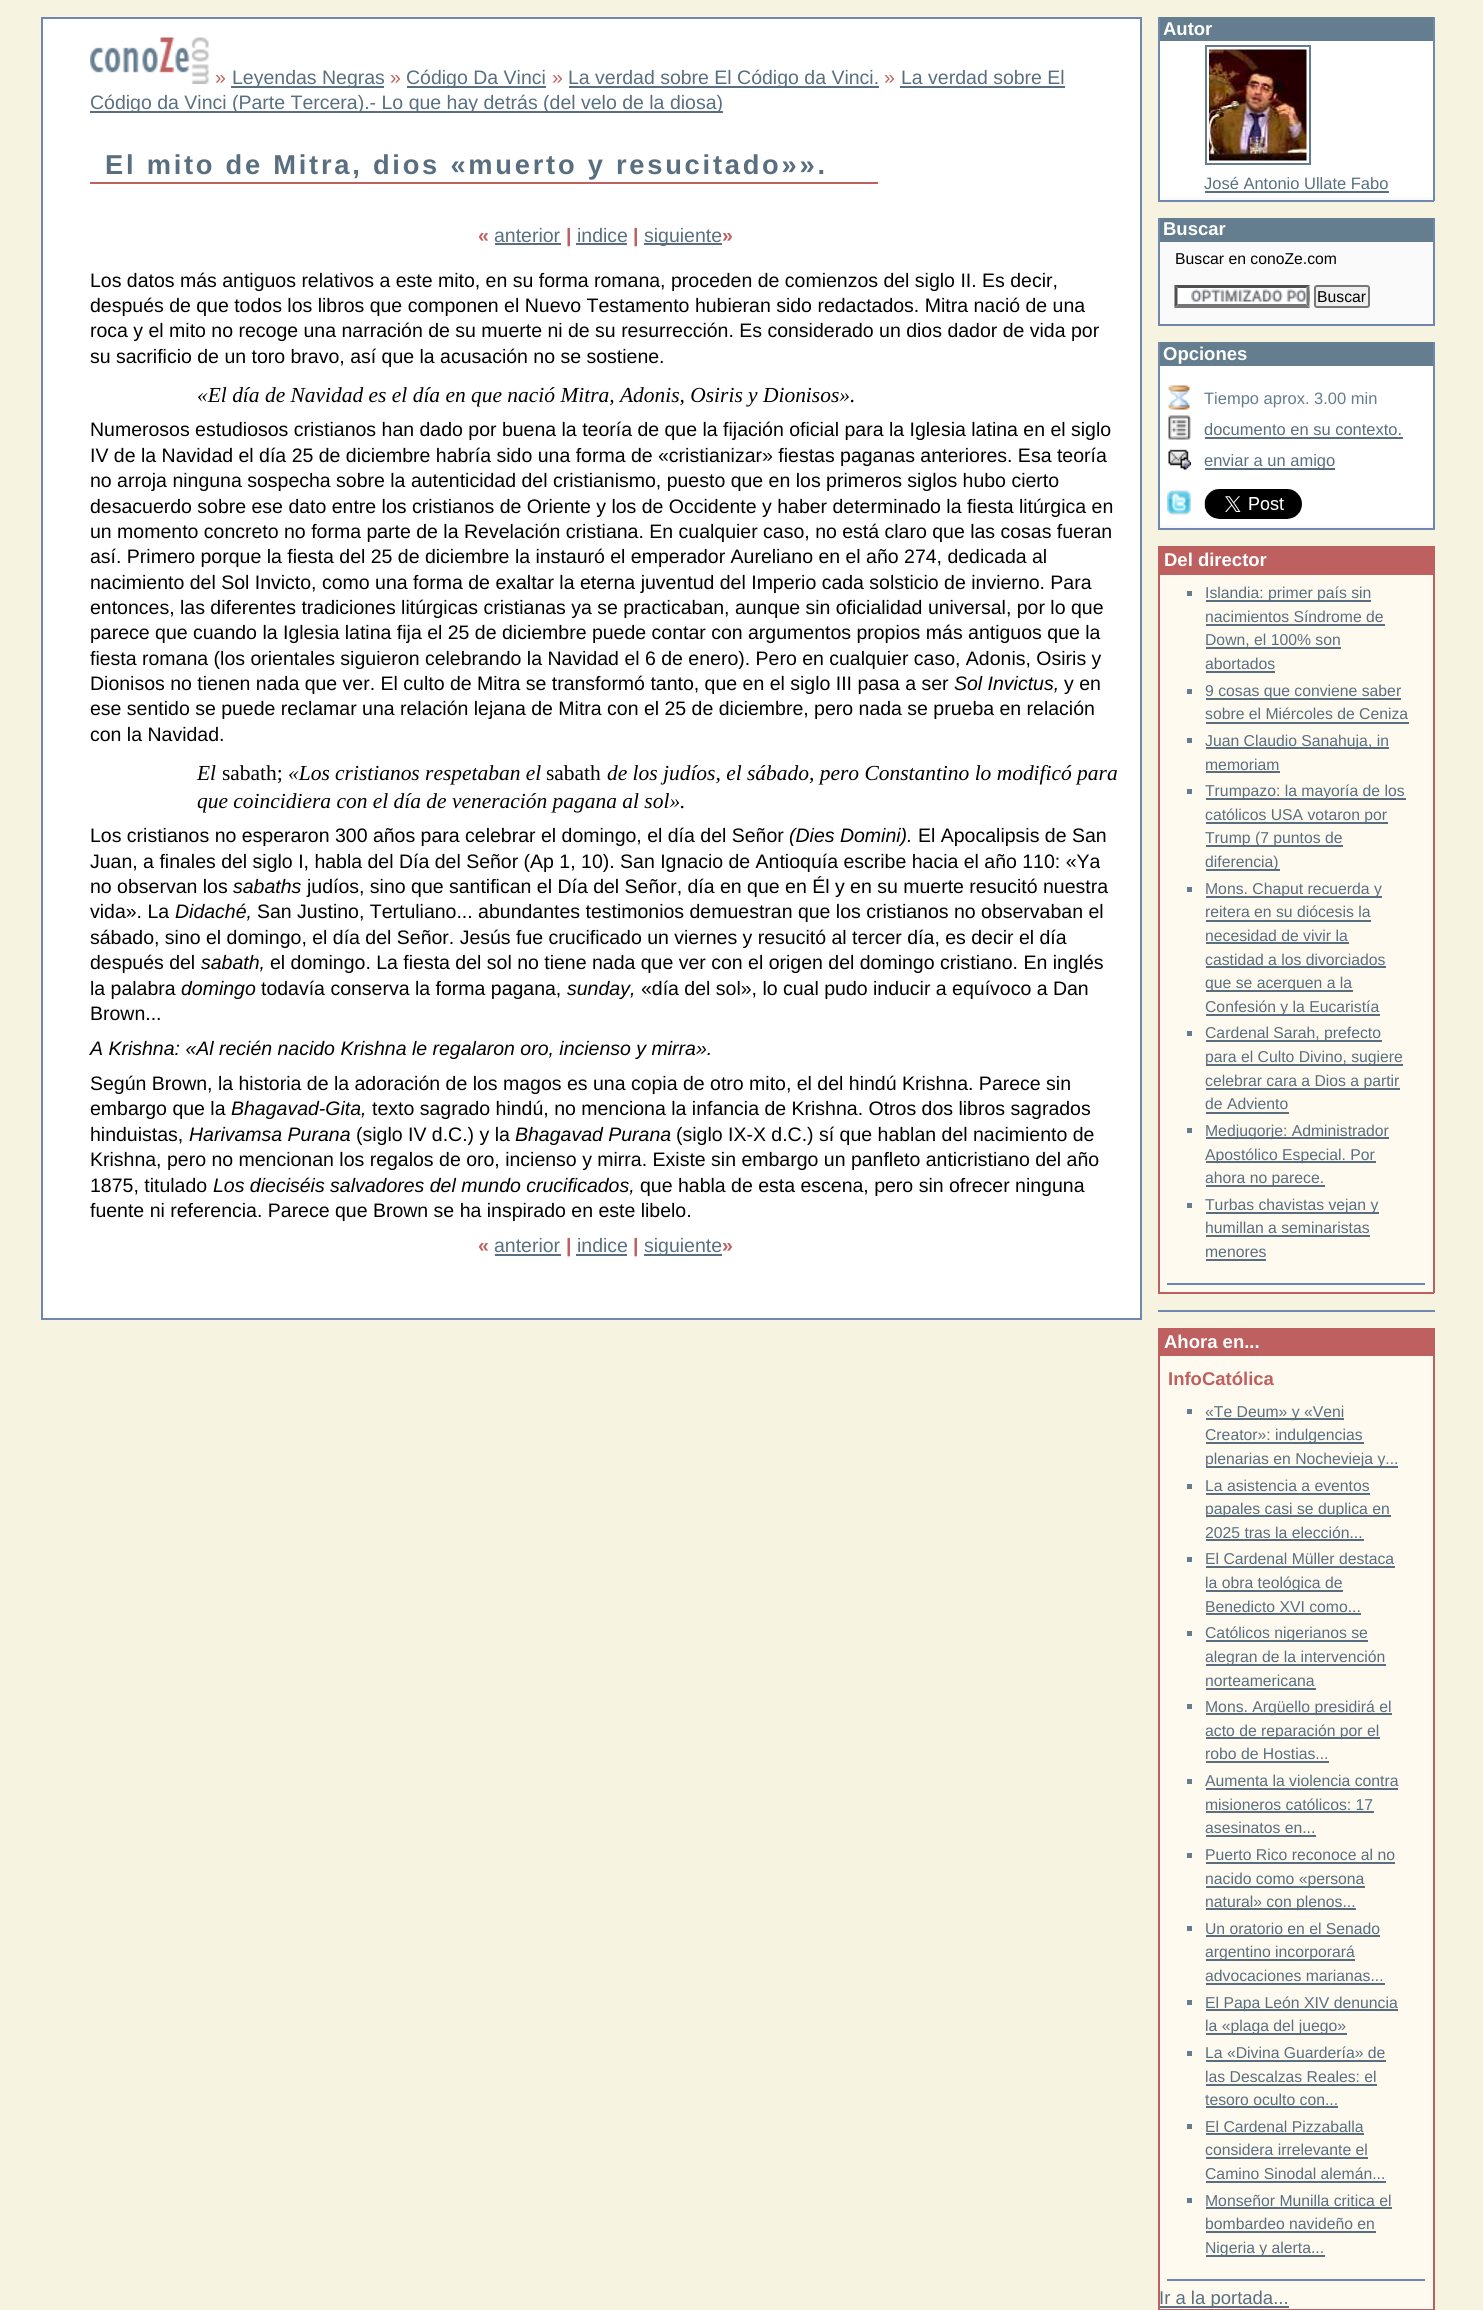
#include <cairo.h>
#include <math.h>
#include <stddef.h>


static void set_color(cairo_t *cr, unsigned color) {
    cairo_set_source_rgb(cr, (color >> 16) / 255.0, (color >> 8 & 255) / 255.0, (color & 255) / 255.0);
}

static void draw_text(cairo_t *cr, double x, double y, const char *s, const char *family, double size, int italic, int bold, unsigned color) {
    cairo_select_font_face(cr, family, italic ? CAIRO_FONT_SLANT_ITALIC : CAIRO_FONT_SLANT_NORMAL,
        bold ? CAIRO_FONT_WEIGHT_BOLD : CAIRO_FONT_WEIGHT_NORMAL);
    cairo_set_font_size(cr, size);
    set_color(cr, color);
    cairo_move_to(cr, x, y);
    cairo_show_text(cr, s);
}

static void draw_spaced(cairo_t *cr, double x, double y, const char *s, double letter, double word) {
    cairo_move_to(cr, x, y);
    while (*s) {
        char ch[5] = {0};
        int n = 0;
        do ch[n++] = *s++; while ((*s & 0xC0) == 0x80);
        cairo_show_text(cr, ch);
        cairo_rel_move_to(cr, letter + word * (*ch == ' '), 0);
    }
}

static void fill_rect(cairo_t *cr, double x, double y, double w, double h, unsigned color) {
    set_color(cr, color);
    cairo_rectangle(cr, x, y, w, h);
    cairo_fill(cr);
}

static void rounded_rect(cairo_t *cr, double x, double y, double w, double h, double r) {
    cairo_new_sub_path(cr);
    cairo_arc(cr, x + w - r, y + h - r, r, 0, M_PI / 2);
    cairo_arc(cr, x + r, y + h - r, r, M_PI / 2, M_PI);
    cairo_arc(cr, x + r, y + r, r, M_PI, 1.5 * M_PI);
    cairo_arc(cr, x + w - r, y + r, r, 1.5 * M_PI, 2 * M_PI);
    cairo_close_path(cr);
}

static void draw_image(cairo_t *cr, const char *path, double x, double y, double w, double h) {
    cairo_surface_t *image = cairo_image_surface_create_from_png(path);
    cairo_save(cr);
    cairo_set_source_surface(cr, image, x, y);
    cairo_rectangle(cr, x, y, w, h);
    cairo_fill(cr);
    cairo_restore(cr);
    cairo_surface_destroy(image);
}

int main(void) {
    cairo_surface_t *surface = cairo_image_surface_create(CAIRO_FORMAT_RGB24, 1483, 2310);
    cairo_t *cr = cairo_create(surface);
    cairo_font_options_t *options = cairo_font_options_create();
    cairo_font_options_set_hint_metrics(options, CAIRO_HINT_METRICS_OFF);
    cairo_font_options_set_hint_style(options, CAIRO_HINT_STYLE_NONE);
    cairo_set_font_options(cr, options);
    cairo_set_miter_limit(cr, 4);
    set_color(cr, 0xF7F3E1);
    cairo_paint(cr);
    set_color(cr, 0xFFFFFF);
    cairo_rectangle(cr, 42, 18, 1099, 1301);
    cairo_fill_preserve(cr);
    set_color(cr, 0x7088B0);
    cairo_stroke(cr);
    draw_image(cr, "assets/img1.png", 90, 37, 119, 47);
    draw_text(cr, 215, 84, "»", "Liberation Sans", 19.5, 0, 0, 0xBF6060);
    fill_rect(cr, 231, 86, 153, 2, 0x596F80);
    draw_text(cr, 232, 84, "Leyendas Negras", "Liberation Sans", 19.5, 0, 0, 0x596F80);
    draw_text(cr, 390, 84, "»", "Liberation Sans", 19.5, 0, 0, 0xBF6060);
    fill_rect(cr, 407, 86, 139, 2, 0x596F80);
    draw_text(cr, 406, 84, "Código Da Vinci", "Liberation Sans", 19.5, 0, 0, 0x596F80);
    draw_text(cr, 552, 84, "»", "Liberation Sans", 19.5, 0, 0, 0xBF6060);
    fill_rect(cr, 569, 86, 310, 2, 0x596F80);
    draw_text(cr, 568, 84, "La verdad sobre El Código da Vinci.", "Liberation Sans", 19.5, 0, 0, 0x596F80);
    draw_text(cr, 884, 84, "»", "Liberation Sans", 19.5, 0, 0, 0xBF6060);
    draw_text(cr, 901, 84, "La verdad sobre El", "Liberation Sans", 19.5, 0, 0, 0x596F80);
    fill_rect(cr, 900, 86, 165, 2, 0x596F80);
    fill_rect(cr, 90, 111, 633, 2, 0x596F80);
    draw_text(cr, 90, 109, "Código da Vinci (Parte Tercera).- Lo que hay detrás (del velo de la diosa)", "Liberation Sans", 19.5, 0, 0, 0x596F80);
    fill_rect(cr, 90, 182, 788, 2, 0xBF6060);
    cairo_select_font_face(cr, "Liberation Sans", CAIRO_FONT_SLANT_NORMAL, CAIRO_FONT_WEIGHT_BOLD);
    cairo_set_font_size(cr, 27.3);
    set_color(cr, 0x596F80);
    draw_spaced(cr, 105, 174, "El mito de Mitra, dios «muerto y resucitado»».", 2.75, 0);
    draw_text(cr, 478, 242, "«", "Liberation Sans", 19.5, 0, 1, 0xBF6060);
    draw_text(cr, 494, 242, "anterior", "Liberation Sans", 19.5, 0, 0, 0x596F80);
    fill_rect(cr, 495, 243, 66, 2, 0x596F80);
    draw_text(cr, 566, 242, "|", "Liberation Sans", 19.5, 0, 1, 0xBF6060);
    draw_text(cr, 577, 242, "indice", "Liberation Sans", 19.5, 0, 0, 0x596F80);
    fill_rect(cr, 576, 243, 51, 2, 0x596F80);
    draw_text(cr, 633, 242, "|", "Liberation Sans", 19.5, 0, 1, 0xBF6060);
    fill_rect(cr, 644, 243, 78, 2, 0x596F80);
    draw_text(cr, 644, 242, "siguiente", "Liberation Sans", 19.5, 0, 0, 0x596F80);
    draw_text(cr, 722, 242, "»", "Liberation Sans", 19.5, 0, 1, 0xBF6060);
    draw_text(cr, 90, 287, "Los datos más antiguos relativos a este mito, en su forma romana, proceden de comienzos del siglo II. Es decir,", "Liberation Sans", 19.5, 0, 0, 0x000000);
    draw_text(cr, 90, 312, "después de que todos los libros que componen el Nuevo Testamento hubieran sido redactados. Mitra nació de una", "Liberation Sans", 19.5, 0, 0, 0x000000);
    draw_text(cr, 90, 337, "roca y el mito no recoge una narración de su muerte ni de su resurrección. Es considerado un dios dador de vida por", "Liberation Sans", 19.5, 0, 0, 0x000000);
    draw_text(cr, 90, 363, "su sacrificio de un toro bravo, así que la acusación no se sostiene.", "Liberation Sans", 19.5, 0, 0, 0x000000);
    draw_text(cr, 197, 402, "«El día de Navidad es el día en que nació Mitra, Adonis, Osiris y Dionisos».", "Liberation Serif", 21.45, 1, 0, 0x000000);
    draw_text(cr, 90, 436, "Numerosos estudiosos cristianos han dado por buena la teoría de que la fijación oficial para la Iglesia latina en el siglo", "Liberation Sans", 19.5, 0, 0, 0x000000);
    draw_text(cr, 90, 462, "IV de la Navidad el día 25 de diciembre habría sido una forma de «cristianizar» fiestas paganas anteriores. Esa teoría", "Liberation Sans", 19.5, 0, 0, 0x000000);
    draw_text(cr, 90, 487, "no arroja ninguna sospecha sobre la autenticidad del cristianismo, puesto que en los primeros siglos hubo cierto", "Liberation Sans", 19.5, 0, 0, 0x000000);
    draw_text(cr, 90, 513, "desacuerdo sobre ese dato entre los cristianos de Oriente y los de Occidente y haber determinado la fiesta litúrgica en", "Liberation Sans", 19.5, 0, 0, 0x000000);
    draw_text(cr, 90, 538, "un momento concreto no forma parte de la Revelación cristiana. En cualquier caso, no está claro que las cosas fueran", "Liberation Sans", 19.5, 0, 0, 0x000000);
    draw_text(cr, 90, 563, "así. Primero porque la fiesta del 25 de diciembre la instauró el emperador Aureliano en el año 274, dedicada al", "Liberation Sans", 19.5, 0, 0, 0x000000);
    draw_text(cr, 90, 589, "nacimiento del Sol Invicto, como una forma de exaltar la eterna juventud del Imperio cada solsticio de invierno. Para", "Liberation Sans", 19.5, 0, 0, 0x000000);
    draw_text(cr, 90, 614, "entonces, las diferentes tradiciones litúrgicas cristianas ya se practicaban, aunque sin oficialidad universal, por lo que", "Liberation Sans", 19.5, 0, 0, 0x000000);
    draw_text(cr, 90, 639, "parece que cuando la Iglesia latina fija el 25 de diciembre puede contar con argumentos propios más antiguos que la", "Liberation Sans", 19.5, 0, 0, 0x000000);
    draw_text(cr, 90, 665, "fiesta romana (los orientales siguieron celebrando la Navidad el 6 de enero). Pero en cualquier caso, Adonis, Osiris y", "Liberation Sans", 19.5, 0, 0, 0x000000);
    draw_text(cr, 90, 690, "Dionisos no tienen nada que ver. El culto de Mitra se transformó tanto, que en el siglo III pasa a ser", "Liberation Sans", 19.5, 0, 0, 0x000000);
    draw_text(cr, 954, 690, "Sol Invictus,", "Liberation Sans", 19.5, 1, 0, 0x000000);
    draw_text(cr, 1064, 690, "y en", "Liberation Sans", 19.5, 0, 0, 0x000000);
    draw_text(cr, 90, 715, "ese sentido se puede reclamar una relación lejana de Mitra con el 25 de diciembre, pero nada se prueba en relación", "Liberation Sans", 19.5, 0, 0, 0x000000);
    draw_text(cr, 90, 741, "con la Navidad.", "Liberation Sans", 19.5, 0, 0, 0x000000);
    draw_text(cr, 197, 780, "El", "Liberation Serif", 21.45, 1, 0, 0x000000);
    draw_text(cr, 222, 780, "sabath;", "Liberation Serif", 21.45, 0, 0, 0x000000);
    draw_text(cr, 288, 780, "«Los cristianos respetaban el", "Liberation Serif", 21.45, 1, 0, 0x000000);
    draw_text(cr, 546, 780, "sabath", "Liberation Serif", 21.45, 0, 0, 0x000000);
    draw_text(cr, 607, 780, "de los judíos, el sábado, pero Constantino lo modificó para", "Liberation Serif", 21.45, 1, 0, 0x000000);
    draw_text(cr, 197, 808, "que coincidiera con el día de veneración pagana al sol».", "Liberation Serif", 21.45, 1, 0, 0x000000);
    draw_text(cr, 90, 842, "Los cristianos no esperaron 300 años para celebrar el domingo, el día del Señor", "Liberation Sans", 19.5, 0, 0, 0x000000);
    draw_text(cr, 789, 842, "(Dies Domini).", "Liberation Sans", 19.5, 1, 0, 0x000000);
    draw_text(cr, 918, 842, "El Apocalipsis de San", "Liberation Sans", 19.5, 0, 0, 0x000000);
    draw_text(cr, 90, 868, "Juan, a finales del siglo I, habla del Día del Señor (Ap 1, 10). San Ignacio de Antioquía escribe hacia el año 110: «Ya", "Liberation Sans", 19.5, 0, 0, 0x000000);
    draw_text(cr, 90, 893, "no observan los", "Liberation Sans", 19.5, 0, 0, 0x000000);
    draw_text(cr, 233, 893, "sabaths", "Liberation Sans", 19.5, 1, 0, 0x000000);
    draw_text(cr, 307, 893, "judíos, sino que santifican el Día del Señor, día en que en Él y en su muerte resucitó nuestra", "Liberation Sans", 19.5, 0, 0, 0x000000);
    draw_text(cr, 90, 918, "vida». La", "Liberation Sans", 19.5, 0, 0, 0x000000);
    draw_text(cr, 175, 918, "Didaché,", "Liberation Sans", 19.5, 1, 0, 0x000000);
    draw_text(cr, 257, 918, "San Justino, Tertuliano... abundantes testimonios demuestran que los cristianos no observaban el", "Liberation Sans", 19.5, 0, 0, 0x000000);
    draw_text(cr, 90, 944, "sábado, sino el domingo, el día del Señor. Jesús fue crucificado un viernes y resucitó al tercer día, es decir el día", "Liberation Sans", 19.5, 0, 0, 0x000000);
    draw_text(cr, 90, 969, "después del", "Liberation Sans", 19.5, 0, 0, 0x000000);
    draw_text(cr, 201, 969, "sabath,", "Liberation Sans", 19.5, 1, 0, 0x000000);
    draw_text(cr, 270, 969, "el domingo. La fiesta del sol no tiene nada que ver con el origen del domingo cristiano. En inglés", "Liberation Sans", 19.5, 0, 0, 0x000000);
    draw_text(cr, 90, 995, "la palabra", "Liberation Sans", 19.5, 0, 0, 0x000000);
    draw_text(cr, 181, 995, "domingo", "Liberation Sans", 19.5, 1, 0, 0x000000);
    draw_text(cr, 261, 995, "todavía conserva la forma pagana,", "Liberation Sans", 19.5, 0, 0, 0x000000);
    draw_text(cr, 567, 995, "sunday,", "Liberation Sans", 19.5, 1, 0, 0x000000);
    draw_text(cr, 641, 995, "«día del sol», lo cual pudo inducir a equívoco a Dan", "Liberation Sans", 19.5, 0, 0, 0x000000);
    draw_text(cr, 90, 1020, "Brown...", "Liberation Sans", 19.5, 0, 0, 0x000000);
    draw_text(cr, 90, 1055, "A Krishna: «Al recién nacido Krishna le regalaron oro, incienso y mirra».", "Liberation Sans", 19.5, 1, 0, 0x000000);
    draw_text(cr, 90, 1090, "Según Brown, la historia de la adoración de los magos es una copia de otro mito, el del hindú Krishna. Parece sin", "Liberation Sans", 19.5, 0, 0, 0x000000);
    draw_text(cr, 90, 1115, "embargo que la", "Liberation Sans", 19.5, 0, 0, 0x000000);
    draw_text(cr, 231, 1115, "Bhagavad-Gita,", "Liberation Sans", 19.5, 1, 0, 0x000000);
    draw_text(cr, 372, 1115, "texto sagrado hindú, no menciona la infancia de Krishna. Otros dos libros sagrados", "Liberation Sans", 19.5, 0, 0, 0x000000);
    draw_text(cr, 90, 1141, "hinduistas,", "Liberation Sans", 19.5, 0, 0, 0x000000);
    draw_text(cr, 189, 1141, "Harivamsa Purana", "Liberation Sans", 19.5, 1, 0, 0x000000);
    draw_text(cr, 356, 1141, "(siglo IV d.C.) y la", "Liberation Sans", 19.5, 0, 0, 0x000000);
    draw_text(cr, 515, 1141, "Bhagavad Purana", "Liberation Sans", 19.5, 1, 0, 0x000000);
    draw_text(cr, 676, 1141, "(siglo IX-X d.C.) sí que hablan del nacimiento de", "Liberation Sans", 19.5, 0, 0, 0x000000);
    draw_text(cr, 90, 1166, "Krishna, pero no mencionan los regalos de oro, incienso y mirra. Existe sin embargo un panfleto anticristiano del año", "Liberation Sans", 19.5, 0, 0, 0x000000);
    draw_text(cr, 90, 1192, "1875, titulado", "Liberation Sans", 19.5, 0, 0, 0x000000);
    draw_text(cr, 213, 1192, "Los dieciséis salvadores del mundo crucificados,", "Liberation Sans", 19.5, 1, 0, 0x000000);
    draw_text(cr, 640, 1192, "que habla de esta escena, pero sin ofrecer ninguna", "Liberation Sans", 19.5, 0, 0, 0x000000);
    draw_text(cr, 90, 1217, "fuente ni referencia. Parece que Brown se ha inspirado en este libelo.", "Liberation Sans", 19.5, 0, 0, 0x000000);
    draw_text(cr, 478, 1252, "«", "Liberation Sans", 19.5, 0, 1, 0xBF6060);
    draw_text(cr, 494, 1252, "anterior", "Liberation Sans", 19.5, 0, 0, 0x596F80);
    fill_rect(cr, 495, 1254, 66, 2, 0x596F80);
    draw_text(cr, 566, 1252, "|", "Liberation Sans", 19.5, 0, 1, 0xBF6060);
    draw_text(cr, 577, 1252, "indice", "Liberation Sans", 19.5, 0, 0, 0x596F80);
    fill_rect(cr, 576, 1254, 51, 2, 0x596F80);
    draw_text(cr, 633, 1252, "|", "Liberation Sans", 19.5, 0, 1, 0xBF6060);
    fill_rect(cr, 644, 1254, 78, 2, 0x596F80);
    draw_text(cr, 644, 1252, "siguiente", "Liberation Sans", 19.5, 0, 0, 0x596F80);
    draw_text(cr, 722, 1252, "»", "Liberation Sans", 19.5, 0, 1, 0xBF6060);
    fill_rect(cr, 1160, 197, 273, 3, 0xF9FAF9);
    fill_rect(cr, 1433, 17, 2, 184, 0x7088B0);
    fill_rect(cr, 1158, 200, 276, 2, 0x7088B0);
    fill_rect(cr, 1158, 17, 2, 184, 0x7088B0);
    fill_rect(cr, 1160, 17, 273, 24, 0x647D8F);
    draw_text(cr, 1163, 35, "Autor", "Liberation Sans", 18.5, 0, 1, 0xFFFFFF);
    fill_rect(cr, 1160, 41, 273, 156, 0xFFFFFF);
    cairo_rectangle(cr, 1206, 46, 104, 118);
    set_color(cr, 0x647D8F);
    cairo_stroke(cr);
    draw_image(cr, "assets/img2.png", 1209, 49, 98, 112);
    draw_text(cr, 1204, 189, "José Antonio Ullate Fabo", "Liberation Sans", 16.5, 0, 0, 0x596F80);
    fill_rect(cr, 1205, 191, 184, 2, 0x596F80);
    fill_rect(cr, 1160, 242, 273, 82, 0xF9FAF9);
    fill_rect(cr, 1433, 218, 2, 108, 0x7088B0);
    fill_rect(cr, 1158, 324, 276, 2, 0x7088B0);
    fill_rect(cr, 1158, 218, 2, 108, 0x7088B0);
    fill_rect(cr, 1160, 218, 273, 24, 0x647D8F);
    draw_text(cr, 1163, 235, "Buscar", "Liberation Sans", 18.5, 0, 1, 0xFFFFFF);
    draw_text(cr, 1175, 264, "Buscar en conoZe.com", "Liberation Sans", 15.75, 0, 0, 0x000000);
    fill_rect(cr, 1175, 285, 135, 23, 0xFFFFFF);
    draw_image(cr, "assets/img3.png", 1191, 289, 119, 13);
    set_color(cr, 0x4F4F4F);
    cairo_new_path(cr);
    cairo_move_to(cr, 1174, 285);
    cairo_line_to(cr, 1310, 285);
    cairo_line_to(cr, 1306, 288);
    cairo_line_to(cr, 1178, 288);
    cairo_close_path(cr);
    cairo_fill(cr);
    set_color(cr, 0x767676);
    cairo_new_path(cr);
    cairo_move_to(cr, 1309.5, 285);
    cairo_line_to(cr, 1309.5, 307.5);
    cairo_line_to(cr, 1306.5, 304.5);
    cairo_line_to(cr, 1306.5, 288);
    cairo_close_path(cr);
    cairo_fill(cr);
    cairo_new_path(cr);
    cairo_move_to(cr, 1310, 308);
    cairo_line_to(cr, 1174, 308);
    cairo_line_to(cr, 1178, 304);
    cairo_line_to(cr, 1306, 304);
    cairo_close_path(cr);
    cairo_fill(cr);
    set_color(cr, 0x4F4F4F);
    cairo_new_path(cr);
    cairo_move_to(cr, 1174.5, 307.5);
    cairo_line_to(cr, 1174.5, 285);
    cairo_line_to(cr, 1177.5, 288);
    cairo_line_to(cr, 1177.5, 304.5);
    cairo_close_path(cr);
    cairo_fill(cr);
    set_color(cr, 0xEFEFEF);
    rounded_rect(cr, 1315, 286, 54, 21, 2);
    cairo_fill_preserve(cr);
    set_color(cr, 0x767676);
    cairo_stroke(cr);
    draw_text(cr, 1317, 302, "Buscar", "Liberation Sans", 15.75, 0, 0, 0x000000);
    fill_rect(cr, 1160, 525, 273, 3, 0xF9FAF9);
    fill_rect(cr, 1433, 342, 2, 188, 0x7088B0);
    fill_rect(cr, 1158, 528, 276, 2, 0x7088B0);
    fill_rect(cr, 1158, 342, 2, 188, 0x7088B0);
    fill_rect(cr, 1160, 342, 273, 24, 0x647D8F);
    draw_text(cr, 1163, 360, "Opciones", "Liberation Sans", 18.5, 0, 1, 0xFFFFFF);
    fill_rect(cr, 1160, 366, 273, 159, 0xFFFFFF);
    draw_image(cr, "assets/img4.png", 1168, 385, 22, 25);
    draw_text(cr, 1204, 404, "Tiempo aprox. 3.00 min", "Liberation Sans", 16.5, 0, 0, 0x647D8F);
    draw_image(cr, "assets/img5.png", 1168, 415, 23, 25);
    draw_text(cr, 1204, 435, "documento en su contexto.", "Liberation Sans", 16.5, 0, 0, 0x596F80);
    fill_rect(cr, 1205, 437, 198, 2, 0x596F80);
    draw_image(cr, "assets/img6.png", 1168, 449, 23, 21);
    fill_rect(cr, 1205, 468, 130, 2, 0x596F80);
    draw_text(cr, 1204, 466, "enviar a un amigo", "Liberation Sans", 16.5, 0, 0, 0x596F80);
    draw_image(cr, "assets/img7.png", 1167, 490, 24, 25);
    draw_image(cr, "assets/img8.png", 1204, 489, 98, 30);
    fill_rect(cr, 1160, 575, 273, 717, 0xFFFAF0);
    fill_rect(cr, 1433, 546, 2, 747, 0xBF6060);
    fill_rect(cr, 1158, 1292, 276, 2, 0xBF6060);
    fill_rect(cr, 1158, 546, 2, 747, 0xBF6060);
    fill_rect(cr, 1160, 546, 273, 29, 0xBF6060);
    draw_text(cr, 1164, 566, "Del director", "Liberation Sans", 18.5, 0, 1, 0xFFFFFF);
    fill_rect(cr, 1167, 1283, 258, 2, 0x7088B0);
    fill_rect(cr, 1187, 591, 5, 5, 0x647D8F);
    fill_rect(cr, 1206, 600, 165, 2, 0x596F80);
    draw_text(cr, 1205, 598, "Islandia: primer país sin", "Liberation Sans", 15.75, 0, 0, 0x596F80);
    draw_text(cr, 1205, 622, "nacimientos Síndrome de", "Liberation Sans", 15.75, 0, 0, 0x596F80);
    fill_rect(cr, 1206, 624, 179, 2, 0x596F80);
    draw_text(cr, 1205, 645, "Down, el 100% son", "Liberation Sans", 15.75, 0, 0, 0x596F80);
    fill_rect(cr, 1206, 647, 135, 2, 0x596F80);
    draw_text(cr, 1205, 669, "abortados", "Liberation Sans", 15.75, 0, 0, 0x596F80);
    fill_rect(cr, 1206, 671, 69, 2, 0x596F80);
    fill_rect(cr, 1187, 689, 5, 5, 0x647D8F);
    fill_rect(cr, 1206, 698, 195, 2, 0x596F80);
    draw_text(cr, 1205, 696, "9 cosas que conviene saber", "Liberation Sans", 15.75, 0, 0, 0x596F80);
    draw_text(cr, 1205, 719, "sobre el Miércoles de Ceniza", "Liberation Sans", 15.75, 0, 0, 0x596F80);
    fill_rect(cr, 1206, 722, 203, 2, 0x596F80);
    fill_rect(cr, 1187, 738, 5, 5, 0x647D8F);
    fill_rect(cr, 1206, 747, 183, 2, 0x596F80);
    draw_text(cr, 1205, 746, "Juan Claudio Sanahuja, in", "Liberation Sans", 15.75, 0, 0, 0x596F80);
    draw_text(cr, 1205, 770, "memoriam", "Liberation Sans", 15.75, 0, 0, 0x596F80);
    fill_rect(cr, 1206, 771, 74, 2, 0x596F80);
    fill_rect(cr, 1187, 789, 5, 5, 0x647D8F);
    fill_rect(cr, 1206, 798, 200, 2, 0x596F80);
    draw_text(cr, 1205, 796, "Trumpazo: la mayoría de los", "Liberation Sans", 15.75, 0, 0, 0x596F80);
    fill_rect(cr, 1206, 822, 182, 2, 0x596F80);
    draw_text(cr, 1205, 820, "católicos USA votaron por", "Liberation Sans", 15.75, 0, 0, 0x596F80);
    fill_rect(cr, 1206, 845, 137, 2, 0x596F80);
    draw_text(cr, 1205, 843, "Trump (7 puntos de", "Liberation Sans", 15.75, 0, 0, 0x596F80);
    fill_rect(cr, 1206, 869, 74, 2, 0x596F80);
    draw_text(cr, 1205, 867, "diferencia)", "Liberation Sans", 15.75, 0, 0, 0x596F80);
    fill_rect(cr, 1187, 887, 5, 5, 0x647D8F);
    fill_rect(cr, 1206, 896, 176, 2, 0x596F80);
    draw_text(cr, 1205, 894, "Mons. Chaput recuerda y", "Liberation Sans", 15.75, 0, 0, 0x596F80);
    draw_text(cr, 1205, 917, "reitera en su diócesis la", "Liberation Sans", 15.75, 0, 0, 0x596F80);
    fill_rect(cr, 1206, 920, 165, 2, 0x596F80);
    draw_text(cr, 1205, 941, "necesidad de vivir la", "Liberation Sans", 15.75, 0, 0, 0x596F80);
    fill_rect(cr, 1206, 942, 143, 2, 0x596F80);
    draw_text(cr, 1205, 965, "castidad a los divorciados", "Liberation Sans", 15.75, 0, 0, 0x596F80);
    fill_rect(cr, 1206, 966, 180, 2, 0x596F80);
    fill_rect(cr, 1206, 990, 147, 2, 0x596F80);
    draw_text(cr, 1205, 988, "que se acerquen a la", "Liberation Sans", 15.75, 0, 0, 0x596F80);
    fill_rect(cr, 1206, 1014, 174, 2, 0x596F80);
    draw_text(cr, 1205, 1012, "Confesión y la Eucaristía", "Liberation Sans", 15.75, 0, 0, 0x596F80);
    fill_rect(cr, 1187, 1031, 5, 5, 0x647D8F);
    fill_rect(cr, 1206, 1040, 176, 2, 0x596F80);
    draw_text(cr, 1205, 1038, "Cardenal Sarah, prefecto", "Liberation Sans", 15.75, 0, 0, 0x596F80);
    fill_rect(cr, 1206, 1064, 197, 2, 0x596F80);
    draw_text(cr, 1205, 1062, "para el Culto Divino, sugiere", "Liberation Sans", 15.75, 0, 0, 0x596F80);
    fill_rect(cr, 1206, 1088, 194, 2, 0x596F80);
    draw_text(cr, 1205, 1086, "celebrar cara a Dios a partir", "Liberation Sans", 15.75, 0, 0, 0x596F80);
    draw_text(cr, 1205, 1109, "de Adviento", "Liberation Sans", 15.75, 0, 0, 0x596F80);
    fill_rect(cr, 1206, 1112, 83, 2, 0x596F80);
    fill_rect(cr, 1187, 1128, 5, 5, 0x647D8F);
    fill_rect(cr, 1206, 1137, 183, 2, 0x596F80);
    draw_text(cr, 1205, 1136, "Medjugorje: Administrador", "Liberation Sans", 15.75, 0, 0, 0x596F80);
    fill_rect(cr, 1206, 1161, 170, 2, 0x596F80);
    draw_text(cr, 1205, 1160, "Apostólico Especial. Por", "Liberation Sans", 15.75, 0, 0, 0x596F80);
    fill_rect(cr, 1206, 1185, 119, 2, 0x596F80);
    draw_text(cr, 1205, 1183, "ahora no parece.", "Liberation Sans", 15.75, 0, 0, 0x596F80);
    fill_rect(cr, 1187, 1203, 5, 5, 0x647D8F);
    fill_rect(cr, 1206, 1212, 173, 2, 0x596F80);
    draw_text(cr, 1205, 1210, "Turbas chavistas vejan y", "Liberation Sans", 15.75, 0, 0, 0x596F80);
    draw_text(cr, 1205, 1233, "humillan a seminaristas", "Liberation Sans", 15.75, 0, 0, 0x596F80);
    fill_rect(cr, 1206, 1235, 164, 2, 0x596F80);
    draw_text(cr, 1205, 1257, "menores", "Liberation Sans", 15.75, 0, 0, 0x596F80);
    fill_rect(cr, 1206, 1259, 60, 2, 0x596F80);
    fill_rect(cr, 1158, 1310, 277, 2, 0x7088B0);
    fill_rect(cr, 1160, 1356, 273, 953, 0xFFFAF0);
    fill_rect(cr, 1433, 1328, 2, 982, 0xBF6060);
    fill_rect(cr, 1158, 2309, 276, 1, 0xBF6060);
    fill_rect(cr, 1158, 1328, 2, 982, 0xBF6060);
    fill_rect(cr, 1160, 1328, 273, 28, 0xBF6060);
    draw_text(cr, 1164, 1348, "Ahora en...", "Liberation Sans", 18.5, 0, 1, 0xFFFFFF);
    draw_text(cr, 1168, 1385, "InfoCatólica", "Liberation Sans", 18.5, 0, 1, 0xBF6060);
    fill_rect(cr, 1167, 2279, 258, 2, 0x7088B0);
    fill_rect(cr, 1187, 1409, 5, 5, 0x647D8F);
    fill_rect(cr, 1206, 1418, 138, 2, 0x596F80);
    draw_text(cr, 1205, 1417, "«Te Deum» y «Veni", "Liberation Sans", 15.75, 0, 0, 0x596F80);
    fill_rect(cr, 1206, 1442, 158, 2, 0x596F80);
    draw_text(cr, 1205, 1440, "Creator»: indulgencias", "Liberation Sans", 15.75, 0, 0, 0x596F80);
    fill_rect(cr, 1206, 1466, 192, 2, 0x596F80);
    draw_text(cr, 1205, 1464, "plenarias en Nochevieja y...", "Liberation Sans", 15.75, 0, 0, 0x596F80);
    fill_rect(cr, 1187, 1484, 5, 5, 0x647D8F);
    draw_text(cr, 1205, 1491, "La asistencia a eventos", "Liberation Sans", 15.75, 0, 0, 0x596F80);
    fill_rect(cr, 1206, 1493, 164, 2, 0x596F80);
    fill_rect(cr, 1206, 1515, 185, 2, 0x596F80);
    draw_text(cr, 1205, 1514, "papales casi se duplica en", "Liberation Sans", 15.75, 0, 0, 0x596F80);
    draw_text(cr, 1205, 1538, "2025 tras la elección...", "Liberation Sans", 15.75, 0, 0, 0x596F80);
    fill_rect(cr, 1206, 1539, 158, 2, 0x596F80);
    fill_rect(cr, 1187, 1557, 5, 5, 0x647D8F);
    draw_text(cr, 1205, 1564, "El Cardenal Müller destaca", "Liberation Sans", 15.75, 0, 0, 0x596F80);
    fill_rect(cr, 1206, 1566, 189, 2, 0x596F80);
    fill_rect(cr, 1206, 1590, 137, 2, 0x596F80);
    draw_text(cr, 1205, 1588, "la obra teológica de", "Liberation Sans", 15.75, 0, 0, 0x596F80);
    draw_text(cr, 1205, 1612, "Benedicto XVI como...", "Liberation Sans", 15.75, 0, 0, 0x596F80);
    fill_rect(cr, 1206, 1613, 155, 2, 0x596F80);
    fill_rect(cr, 1187, 1631, 5, 5, 0x647D8F);
    fill_rect(cr, 1206, 1640, 162, 2, 0x596F80);
    draw_text(cr, 1205, 1638, "Católicos nigerianos se", "Liberation Sans", 15.75, 0, 0, 0x596F80);
    fill_rect(cr, 1206, 1664, 180, 2, 0x596F80);
    draw_text(cr, 1205, 1662, "alegran de la intervención", "Liberation Sans", 15.75, 0, 0, 0x596F80);
    draw_text(cr, 1205, 1686, "norteamericana", "Liberation Sans", 15.75, 0, 0, 0x596F80);
    fill_rect(cr, 1206, 1688, 110, 2, 0x596F80);
    fill_rect(cr, 1187, 1704, 5, 5, 0x647D8F);
    fill_rect(cr, 1206, 1713, 186, 2, 0x596F80);
    draw_text(cr, 1205, 1712, "Mons. Argüello presidirá el", "Liberation Sans", 15.75, 0, 0, 0x596F80);
    fill_rect(cr, 1206, 1737, 174, 2, 0x596F80);
    draw_text(cr, 1205, 1736, "acto de reparación por el", "Liberation Sans", 15.75, 0, 0, 0x596F80);
    draw_text(cr, 1205, 1759, "robo de Hostias...", "Liberation Sans", 15.75, 0, 0, 0x596F80);
    fill_rect(cr, 1206, 1761, 123, 2, 0x596F80);
    fill_rect(cr, 1187, 1779, 5, 5, 0x647D8F);
    draw_text(cr, 1205, 1786, "Aumenta la violencia contra", "Liberation Sans", 15.75, 0, 0, 0x596F80);
    fill_rect(cr, 1206, 1788, 192, 2, 0x596F80);
    draw_text(cr, 1205, 1810, "misioneros católicos: 17", "Liberation Sans", 15.75, 0, 0, 0x596F80);
    fill_rect(cr, 1206, 1811, 168, 2, 0x596F80);
    draw_text(cr, 1205, 1833, "asesinatos en...", "Liberation Sans", 15.75, 0, 0, 0x596F80);
    fill_rect(cr, 1206, 1835, 110, 2, 0x596F80);
    fill_rect(cr, 1187, 1853, 5, 5, 0x647D8F);
    draw_text(cr, 1205, 1860, "Puerto Rico reconoce al no", "Liberation Sans", 15.75, 0, 0, 0x596F80);
    fill_rect(cr, 1206, 1862, 189, 2, 0x596F80);
    fill_rect(cr, 1206, 1886, 159, 2, 0x596F80);
    draw_text(cr, 1205, 1884, "nacido como «persona", "Liberation Sans", 15.75, 0, 0, 0x596F80);
    fill_rect(cr, 1206, 1908, 150, 2, 0x596F80);
    draw_text(cr, 1205, 1907, "natural» con plenos...", "Liberation Sans", 15.75, 0, 0, 0x596F80);
    fill_rect(cr, 1187, 1926, 5, 5, 0x647D8F);
    draw_text(cr, 1205, 1934, "Un oratorio en el Senado", "Liberation Sans", 15.75, 0, 0, 0x596F80);
    fill_rect(cr, 1206, 1935, 174, 2, 0x596F80);
    fill_rect(cr, 1206, 1959, 149, 2, 0x596F80);
    draw_text(cr, 1205, 1957, "argentino incorporará", "Liberation Sans", 15.75, 0, 0, 0x596F80);
    draw_text(cr, 1205, 1981, "advocaciones marianas...", "Liberation Sans", 15.75, 0, 0, 0x596F80);
    fill_rect(cr, 1206, 1983, 179, 2, 0x596F80);
    fill_rect(cr, 1187, 2000, 5, 5, 0x647D8F);
    fill_rect(cr, 1206, 2009, 192, 2, 0x596F80);
    draw_text(cr, 1205, 2008, "El Papa León XIV denuncia", "Liberation Sans", 15.75, 0, 0, 0x596F80);
    fill_rect(cr, 1206, 2033, 141, 2, 0x596F80);
    draw_text(cr, 1205, 2031, "la «plaga del juego»", "Liberation Sans", 15.75, 0, 0, 0x596F80);
    fill_rect(cr, 1187, 2051, 5, 5, 0x647D8F);
    draw_text(cr, 1205, 2058, "La «Divina Guardería» de", "Liberation Sans", 15.75, 0, 0, 0x596F80);
    fill_rect(cr, 1206, 2060, 180, 2, 0x596F80);
    draw_text(cr, 1205, 2082, "las Descalzas Reales: el", "Liberation Sans", 15.75, 0, 0, 0x596F80);
    fill_rect(cr, 1206, 2084, 171, 2, 0x596F80);
    draw_text(cr, 1205, 2105, "tesoro oculto con...", "Liberation Sans", 15.75, 0, 0, 0x596F80);
    fill_rect(cr, 1206, 2106, 132, 2, 0x596F80);
    fill_rect(cr, 1187, 2124, 5, 5, 0x647D8F);
    draw_text(cr, 1205, 2132, "El Cardenal Pizzaballa", "Liberation Sans", 15.75, 0, 0, 0x596F80);
    fill_rect(cr, 1206, 2133, 158, 2, 0x596F80);
    draw_text(cr, 1205, 2155, "considera irrelevante el", "Liberation Sans", 15.75, 0, 0, 0x596F80);
    fill_rect(cr, 1206, 2157, 162, 2, 0x596F80);
    draw_text(cr, 1205, 2179, "Camino Sinodal alemán...", "Liberation Sans", 15.75, 0, 0, 0x596F80);
    fill_rect(cr, 1206, 2181, 180, 2, 0x596F80);
    fill_rect(cr, 1187, 2198, 5, 5, 0x647D8F);
    draw_text(cr, 1205, 2206, "Monseñor Munilla critica el", "Liberation Sans", 15.75, 0, 0, 0x596F80);
    fill_rect(cr, 1206, 2207, 186, 2, 0x596F80);
    draw_text(cr, 1205, 2229, "bombardeo navideño en", "Liberation Sans", 15.75, 0, 0, 0x596F80);
    fill_rect(cr, 1206, 2231, 170, 2, 0x596F80);
    fill_rect(cr, 1206, 2255, 119, 2, 0x596F80);
    draw_text(cr, 1205, 2253, "Nigeria y alerta...", "Liberation Sans", 15.75, 0, 0, 0x596F80);
    fill_rect(cr, 1160, 2306, 129, 2, 0x596F80);
    draw_text(cr, 1159, 2304, "Ir a la portada...", "Liberation Sans", 18.5, 0, 0, 0x596F80);
    cairo_surface_write_to_png(surface, "output.png");
    cairo_font_options_destroy(options);
    cairo_destroy(cr);
    cairo_surface_destroy(surface);
    return 0;
}
